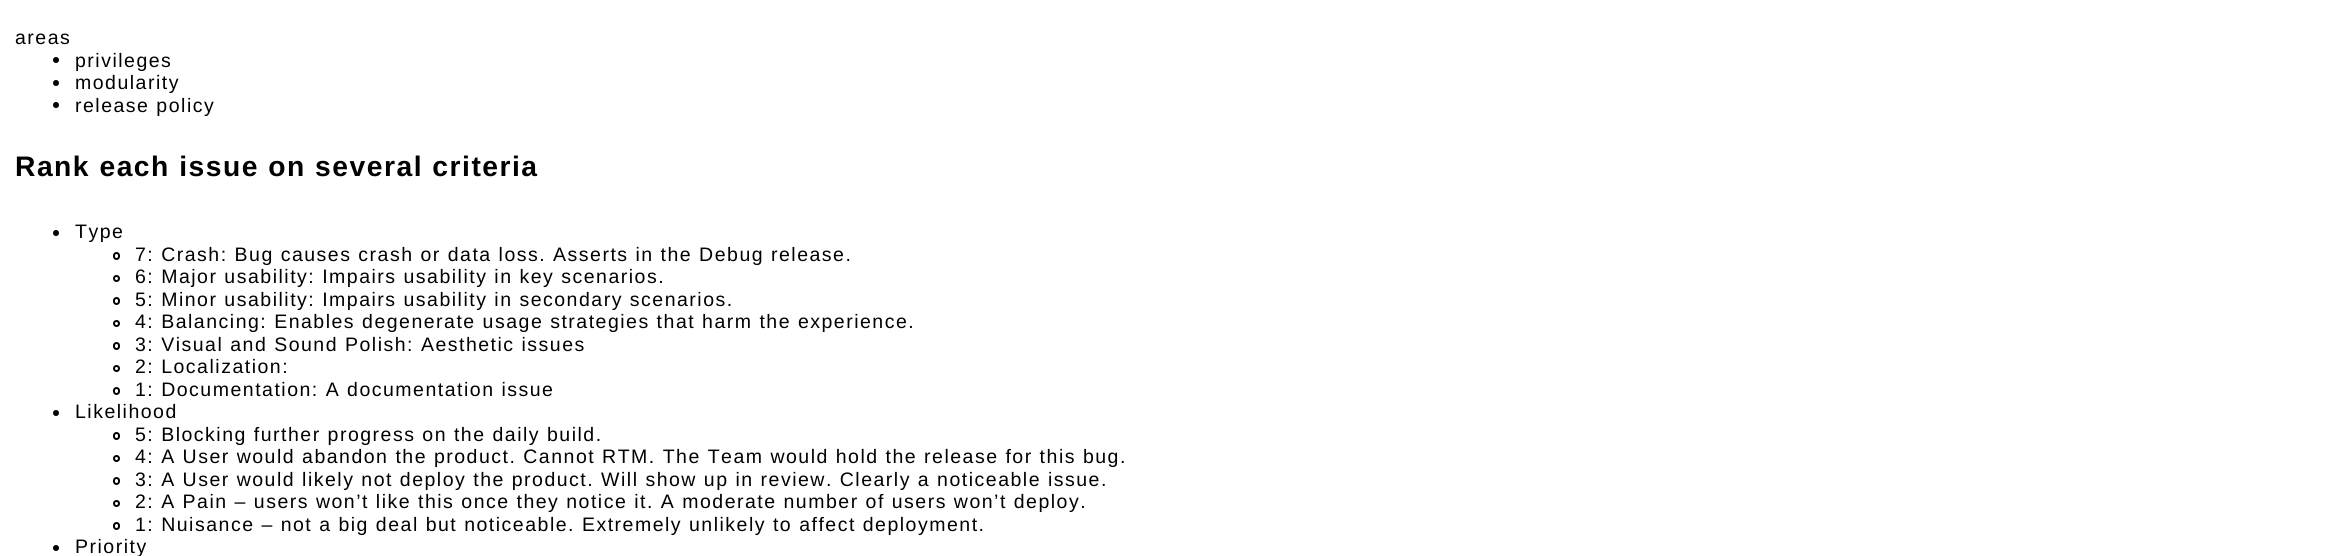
#include <cairo.h>
#include <math.h>
#include <stddef.h>


static void set_color(cairo_t *cr, unsigned color) {
    cairo_set_source_rgb(cr, (color >> 16) / 255.0, (color >> 8 & 255) / 255.0, (color & 255) / 255.0);
}

static void draw_spaced(cairo_t *cr, double x, double y, const char *s, double letter, double word) {
    cairo_move_to(cr, x, y);
    while (*s) {
        char ch[5] = {0};
        int n = 0;
        do ch[n++] = *s++; while ((*s & 0xC0) == 0x80);
        cairo_show_text(cr, ch);
        cairo_rel_move_to(cr, letter + word * (*ch == ' '), 0);
    }
}

static void rounded_rect(cairo_t *cr, double x, double y, double w, double h, double r) {
    cairo_new_sub_path(cr);
    cairo_arc(cr, x + w - r, y + h - r, r, 0, M_PI / 2);
    cairo_arc(cr, x + r, y + h - r, r, M_PI / 2, M_PI);
    cairo_arc(cr, x + r, y + r, r, M_PI, 1.5 * M_PI);
    cairo_arc(cr, x + w - r, y + r, r, 1.5 * M_PI, 2 * M_PI);
    cairo_close_path(cr);
}

int main(void) {
    cairo_surface_t *surface = cairo_image_surface_create(CAIRO_FORMAT_RGB24, 2327, 556);
    cairo_t *cr = cairo_create(surface);
    cairo_font_options_t *options = cairo_font_options_create();
    cairo_font_options_set_hint_metrics(options, CAIRO_HINT_METRICS_OFF);
    cairo_font_options_set_hint_style(options, CAIRO_HINT_STYLE_NONE);
    cairo_set_font_options(cr, options);
    cairo_set_miter_limit(cr, 4);
    set_color(cr, 0xFFFFFF);
    cairo_paint(cr);
    cairo_select_font_face(cr, "Liberation Sans", CAIRO_FONT_SLANT_NORMAL, CAIRO_FONT_WEIGHT_NORMAL);
    cairo_set_font_size(cr, 19.5);
    set_color(cr, 0x000000);
    draw_spaced(cr, 15, 44, "areas", 1.5, 0);
    cairo_new_path(cr);
    cairo_arc(cr, 56, 60, 3, 0, 2 * M_PI);
    cairo_fill(cr);
    draw_spaced(cr, 75, 67, "privileges", 1.5, 0);
    cairo_new_path(cr);
    cairo_arc(cr, 56, 83, 3, 0, 2 * M_PI);
    cairo_fill(cr);
    draw_spaced(cr, 75, 89, "modularity", 1.5, 0);
    cairo_new_path(cr);
    cairo_arc(cr, 56, 105, 3, 0, 2 * M_PI);
    cairo_fill(cr);
    draw_spaced(cr, 75, 112, "release policy", 1.5, 0);
    cairo_select_font_face(cr, "Liberation Sans", CAIRO_FONT_SLANT_NORMAL, CAIRO_FONT_WEIGHT_BOLD);
    cairo_set_font_size(cr, 28.25);
    draw_spaced(cr, 15, 176, "Rank each issue on several criteria", 1.5, 0);
    cairo_new_path(cr);
    cairo_arc(cr, 56, 233, 3, 0, 2 * M_PI);
    cairo_fill(cr);
    cairo_select_font_face(cr, "Liberation Sans", CAIRO_FONT_SLANT_NORMAL, CAIRO_FONT_WEIGHT_NORMAL);
    cairo_set_font_size(cr, 19.5);
    draw_spaced(cr, 75, 238, "Type", 1.5, 0);
    rounded_rect(cr, 114, 253, 5, 6, 2.5);
    cairo_stroke(cr);
    draw_spaced(cr, 135, 261, "7: Crash: Bug causes crash or data loss. Asserts in the Debug release.", 1.5, 0);
    cairo_new_path(cr);
    cairo_arc(cr, 116.5, 278.5, 2.5, 0, 2 * M_PI);
    cairo_stroke(cr);
    draw_spaced(cr, 135, 283, "6: Major usability: Impairs usability in key scenarios.", 1.5, 0);
    rounded_rect(cr, 114, 298, 5, 6, 2.5);
    cairo_stroke(cr);
    draw_spaced(cr, 135, 306, "5: Minor usability: Impairs usability in secondary scenarios.", 1.5, 0);
    cairo_new_path(cr);
    cairo_arc(cr, 116.5, 323.5, 2.5, 0, 2 * M_PI);
    cairo_stroke(cr);
    draw_spaced(cr, 135, 328, "4: Balancing: Enables degenerate usage strategies that harm the experience.", 1.5, 0);
    rounded_rect(cr, 114, 343, 5, 6, 2.5);
    cairo_stroke(cr);
    draw_spaced(cr, 135, 351, "3: Visual and Sound Polish: Aesthetic issues", 1.5, 0);
    cairo_new_path(cr);
    cairo_arc(cr, 116.5, 368.5, 2.5, 0, 2 * M_PI);
    cairo_stroke(cr);
    draw_spaced(cr, 135, 373, "2: Localization:", 1.5, 0);
    rounded_rect(cr, 114, 388, 5, 6, 2.5);
    cairo_stroke(cr);
    draw_spaced(cr, 135, 396, "1: Documentation: A documentation issue", 1.5, 0);
    cairo_new_path(cr);
    cairo_arc(cr, 56, 413, 3, 0, 2 * M_PI);
    cairo_fill(cr);
    draw_spaced(cr, 75, 418, "Likelihood", 1.5, 0);
    rounded_rect(cr, 114, 433, 5, 6, 2.5);
    cairo_stroke(cr);
    draw_spaced(cr, 135, 441, "5: Blocking further progress on the daily build.", 1.5, 0);
    cairo_new_path(cr);
    cairo_arc(cr, 116.5, 458.5, 2.5, 0, 2 * M_PI);
    cairo_stroke(cr);
    draw_spaced(cr, 135, 463, "4: A User would abandon the product. Cannot RTM. The Team would hold the release for this bug.", 1.5, 0);
    rounded_rect(cr, 114, 478, 5, 6, 2.5);
    cairo_stroke(cr);
    draw_spaced(cr, 135, 486, "3: A User would likely not deploy the product. Will show up in review. Clearly a noticeable issue.", 1.5, 0);
    cairo_new_path(cr);
    cairo_arc(cr, 116.5, 503.5, 2.5, 0, 2 * M_PI);
    cairo_stroke(cr);
    draw_spaced(cr, 135, 508, "2: A Pain – users won’t like this once they notice it. A moderate number of users won’t deploy.", 1.5, 0);
    rounded_rect(cr, 114, 523, 5, 6, 2.5);
    cairo_stroke(cr);
    draw_spaced(cr, 135, 531, "1: Nuisance – not a big deal but noticeable. Extremely unlikely to affect deployment.", 1.5, 0);
    cairo_new_path(cr);
    cairo_arc(cr, 56, 548, 3, 0, 2 * M_PI);
    cairo_fill(cr);
    draw_spaced(cr, 75, 553, "Priority", 1.5, 0);
    cairo_surface_write_to_png(surface, "output.png");
    cairo_font_options_destroy(options);
    cairo_destroy(cr);
    cairo_surface_destroy(surface);
    return 0;
}
